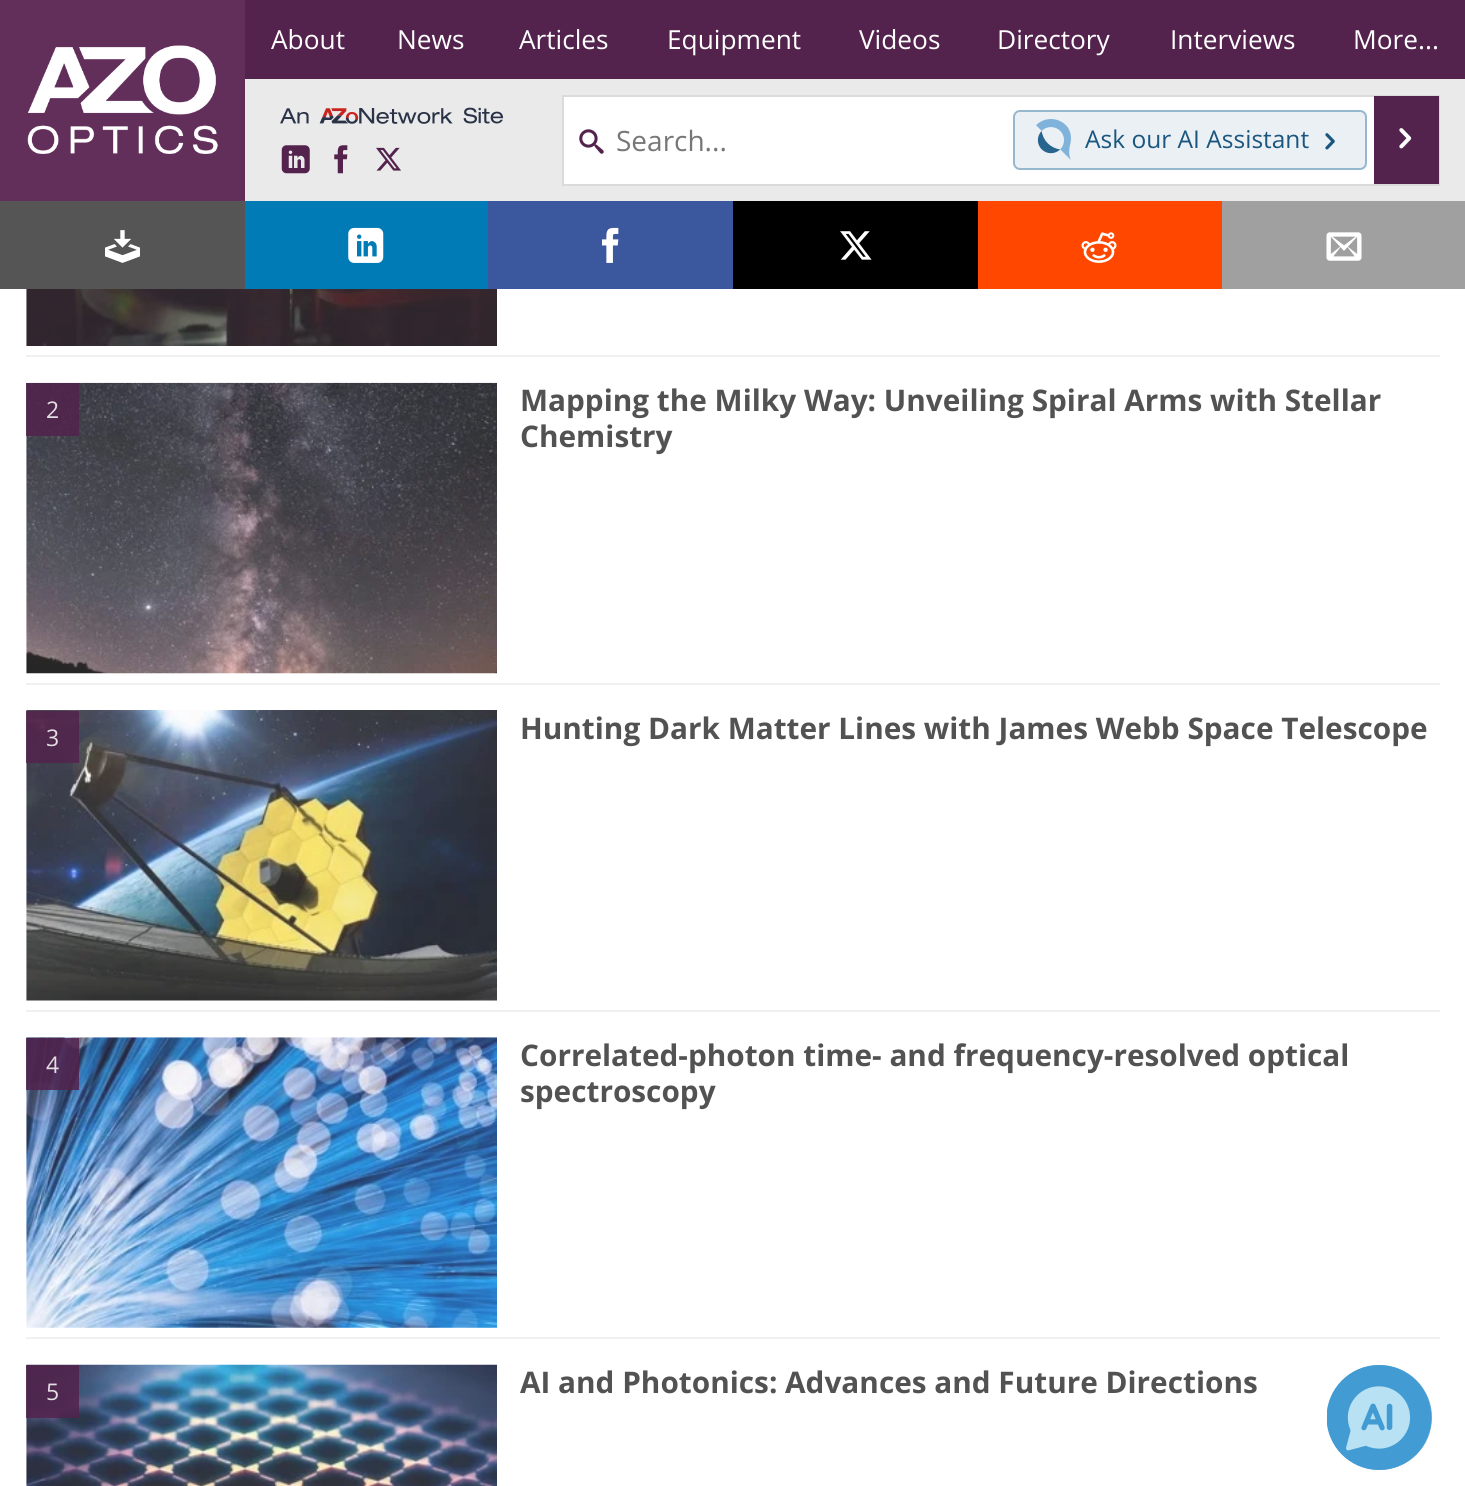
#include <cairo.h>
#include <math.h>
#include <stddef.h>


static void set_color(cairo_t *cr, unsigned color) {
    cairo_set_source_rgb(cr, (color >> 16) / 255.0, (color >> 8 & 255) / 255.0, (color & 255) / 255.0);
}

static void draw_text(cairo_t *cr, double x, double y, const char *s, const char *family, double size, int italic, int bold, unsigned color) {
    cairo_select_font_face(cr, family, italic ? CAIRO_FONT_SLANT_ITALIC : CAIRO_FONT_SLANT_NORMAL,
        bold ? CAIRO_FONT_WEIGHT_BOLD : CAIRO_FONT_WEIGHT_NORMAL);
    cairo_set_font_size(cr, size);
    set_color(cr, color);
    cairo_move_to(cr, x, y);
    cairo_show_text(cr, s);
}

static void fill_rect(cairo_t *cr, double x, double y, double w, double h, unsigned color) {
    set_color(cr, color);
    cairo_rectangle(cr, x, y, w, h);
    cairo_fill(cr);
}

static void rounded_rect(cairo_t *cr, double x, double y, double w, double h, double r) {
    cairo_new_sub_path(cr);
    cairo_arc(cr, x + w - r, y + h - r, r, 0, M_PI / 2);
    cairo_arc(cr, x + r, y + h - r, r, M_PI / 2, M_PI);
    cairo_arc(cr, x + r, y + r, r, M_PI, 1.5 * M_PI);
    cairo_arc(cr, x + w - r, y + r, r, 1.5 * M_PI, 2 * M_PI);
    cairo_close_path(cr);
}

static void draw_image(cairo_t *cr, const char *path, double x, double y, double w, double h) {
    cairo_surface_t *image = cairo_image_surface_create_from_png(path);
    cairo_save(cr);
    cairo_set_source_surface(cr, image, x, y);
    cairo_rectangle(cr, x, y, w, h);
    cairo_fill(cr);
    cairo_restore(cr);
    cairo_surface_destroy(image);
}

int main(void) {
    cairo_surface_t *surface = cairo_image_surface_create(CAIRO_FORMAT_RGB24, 1465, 1486);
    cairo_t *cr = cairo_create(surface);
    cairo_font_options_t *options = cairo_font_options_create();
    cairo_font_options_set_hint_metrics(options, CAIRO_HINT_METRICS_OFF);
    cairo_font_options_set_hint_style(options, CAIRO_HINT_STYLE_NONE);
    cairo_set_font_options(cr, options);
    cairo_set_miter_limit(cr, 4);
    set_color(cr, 0xFFFFFF);
    cairo_paint(cr);
    fill_rect(cr, 245, 79, 1220, 122, 0xEAEAEA);
    fill_rect(cr, 0, 0, 245, 201, 0x622F5B);
    draw_image(cr, "assets/img1.png", 27, 45, 191, 109);
    fill_rect(cr, 245, 0, 1220, 79, 0x53234D);
    draw_text(cr, 271, 49, "About", "Open Sans", 26.25, 0, 0, 0xFFFFFF);
    draw_text(cr, 397, 49, "News", "Open Sans", 26.25, 0, 0, 0xFFFFFF);
    draw_text(cr, 519, 49, "Articles", "Open Sans", 26.25, 0, 0, 0xFFFFFF);
    draw_text(cr, 667, 49, "Equipment", "Open Sans", 26.25, 0, 0, 0xFFFFFF);
    draw_text(cr, 859, 49, "Videos", "Open Sans", 26.25, 0, 0, 0xFFFFFF);
    draw_text(cr, 997, 49, "Directory", "Open Sans", 26.25, 0, 0, 0xFFFFFF);
    draw_text(cr, 1170, 49, "Interviews", "Open Sans", 26.25, 0, 0, 0xFFFFFF);
    draw_text(cr, 1353, 49, "More...", "Open Sans", 26.25, 0, 0, 0xFFFFFF);
    draw_image(cr, "assets/img2.png", 280, 107, 224, 17);
    draw_image(cr, "assets/img3.png", 281, 145, 29, 29);
    draw_image(cr, "assets/img4.png", 334, 145, 14, 29);
    draw_image(cr, "assets/img5.png", 376, 147, 25, 24);
    fill_rect(cr, 564, 97, 810, 87, 0xFFFFFF);
    cairo_rectangle(cr, 563, 96, 876, 89);
    set_color(cr, 0xDBDBDB);
    cairo_stroke(cr);
    draw_image(cr, "assets/img6.png", 579, 129, 25, 25);
    draw_text(cr, 616, 151, "Search...", "Open Sans", 28, 0, 0, 0x777777);
    set_color(cr, 0xEBF0F5);
    rounded_rect(cr, 1014, 111, 352, 58, 6);
    cairo_fill_preserve(cr);
    set_color(cr, 0x97B7CE);
    cairo_stroke(cr);
    draw_image(cr, "assets/img7.png", 1036, 119, 35, 41);
    draw_text(cr, 1085, 148, "Ask our AI Assistant", "Open Sans", 24.5, 0, 0, 0x1A567E);
    draw_image(cr, "assets/img8.png", 1325, 133, 10, 17);
    fill_rect(cr, 1374, 96, 65, 88, 0x53234D);
    draw_image(cr, "assets/img9.png", 1399, 128, 13, 21);
    fill_rect(cr, 0, 201, 245, 88, 0x555555);
    draw_image(cr, "assets/img10.png", 105, 230, 35, 33);
    fill_rect(cr, 245, 201, 243, 88, 0x007BB6);
    draw_image(cr, "assets/img11.png", 348, 227, 36, 36);
    fill_rect(cr, 488, 201, 245, 88, 0x3B579D);
    draw_image(cr, "assets/img12.png", 602, 227, 17, 36);
    fill_rect(cr, 733, 201, 245, 88, 0x000000);
    draw_image(cr, "assets/img13.png", 840, 231, 32, 29);
    fill_rect(cr, 978, 201, 244, 88, 0xFF4700);
    draw_image(cr, "assets/img14.png", 1081, 232, 36, 31);
    fill_rect(cr, 1222, 201, 243, 88, 0xA0A0A0);
    draw_image(cr, "assets/img15.png", 1326, 232, 36, 29);
    fill_rect(cr, 26, 355, 1414, 2, 0xF0F0F0);
    draw_image(cr, "assets/img16.png", 26, 289, 471, 57);
    fill_rect(cr, 26, 683, 1414, 2, 0xF0F0F0);
    draw_image(cr, "assets/img17.png", 26, 382, 471, 292);
    cairo_set_source_rgba(cr, 0.325, 0.137, 0.302, 0.85);
    cairo_rectangle(cr, 26, 383, 53, 53);
    cairo_fill(cr);
    draw_text(cr, 46, 418, "2", "Open Sans", 23, 0, 0, 0xE5DFE4);
    draw_text(cr, 520, 411, "Mapping the Milky Way: Unveiling Spiral Arms with Stellar", "Open Sans", 29.75, 0, 1, 0x525252);
    draw_text(cr, 520, 447, "Chemistry", "Open Sans", 29.75, 0, 1, 0x525252);
    fill_rect(cr, 26, 1010, 1414, 2, 0xF0F0F0);
    draw_image(cr, "assets/img18.png", 26, 710, 471, 291);
    cairo_set_source_rgba(cr, 0.325, 0.137, 0.302, 0.85);
    cairo_rectangle(cr, 26, 711, 53, 52);
    cairo_fill(cr);
    draw_text(cr, 46, 746, "3", "Open Sans", 23, 0, 0, 0xE5DFE4);
    draw_text(cr, 520, 739, "Hunting Dark Matter Lines with James Webb Space Telescope", "Open Sans", 29.75, 0, 1, 0x525252);
    fill_rect(cr, 26, 1337, 1414, 2, 0xF0F0F0);
    draw_image(cr, "assets/img19.png", 26, 1037, 471, 291);
    cairo_set_source_rgba(cr, 0.325, 0.137, 0.302, 0.85);
    cairo_rectangle(cr, 26, 1038, 53, 52);
    cairo_fill(cr);
    draw_text(cr, 46, 1073, "4", "Open Sans", 23, 0, 0, 0xE5DFE4);
    draw_text(cr, 520, 1066, "Correlated-photon time- and frequency-resolved optical", "Open Sans", 29.75, 0, 1, 0x525252);
    draw_text(cr, 520, 1102, "spectroscopy", "Open Sans", 29.75, 0, 1, 0x525252);
    draw_image(cr, "assets/img20.png", 26, 1364, 471, 122);
    cairo_set_source_rgba(cr, 0.325, 0.137, 0.302, 0.85);
    cairo_rectangle(cr, 26, 1365, 53, 53);
    cairo_fill(cr);
    draw_text(cr, 46, 1400, "5", "Open Sans", 23, 0, 0, 0xE5DFE4);
    draw_text(cr, 520, 1393, "AI and Photonics: Advances and Future Directions", "Open Sans", 29.75, 0, 1, 0x525252);
    set_color(cr, 0x7FB3DB);
    cairo_new_path(cr);
    cairo_arc(cr, 1379.5, 1417.5, 52.5, 0, 2 * M_PI);
    cairo_fill(cr);
    draw_image(cr, "assets/img21.png", 1327, 1365, 105, 105);
    cairo_surface_write_to_png(surface, "output.png");
    cairo_font_options_destroy(options);
    cairo_destroy(cr);
    cairo_surface_destroy(surface);
    return 0;
}
